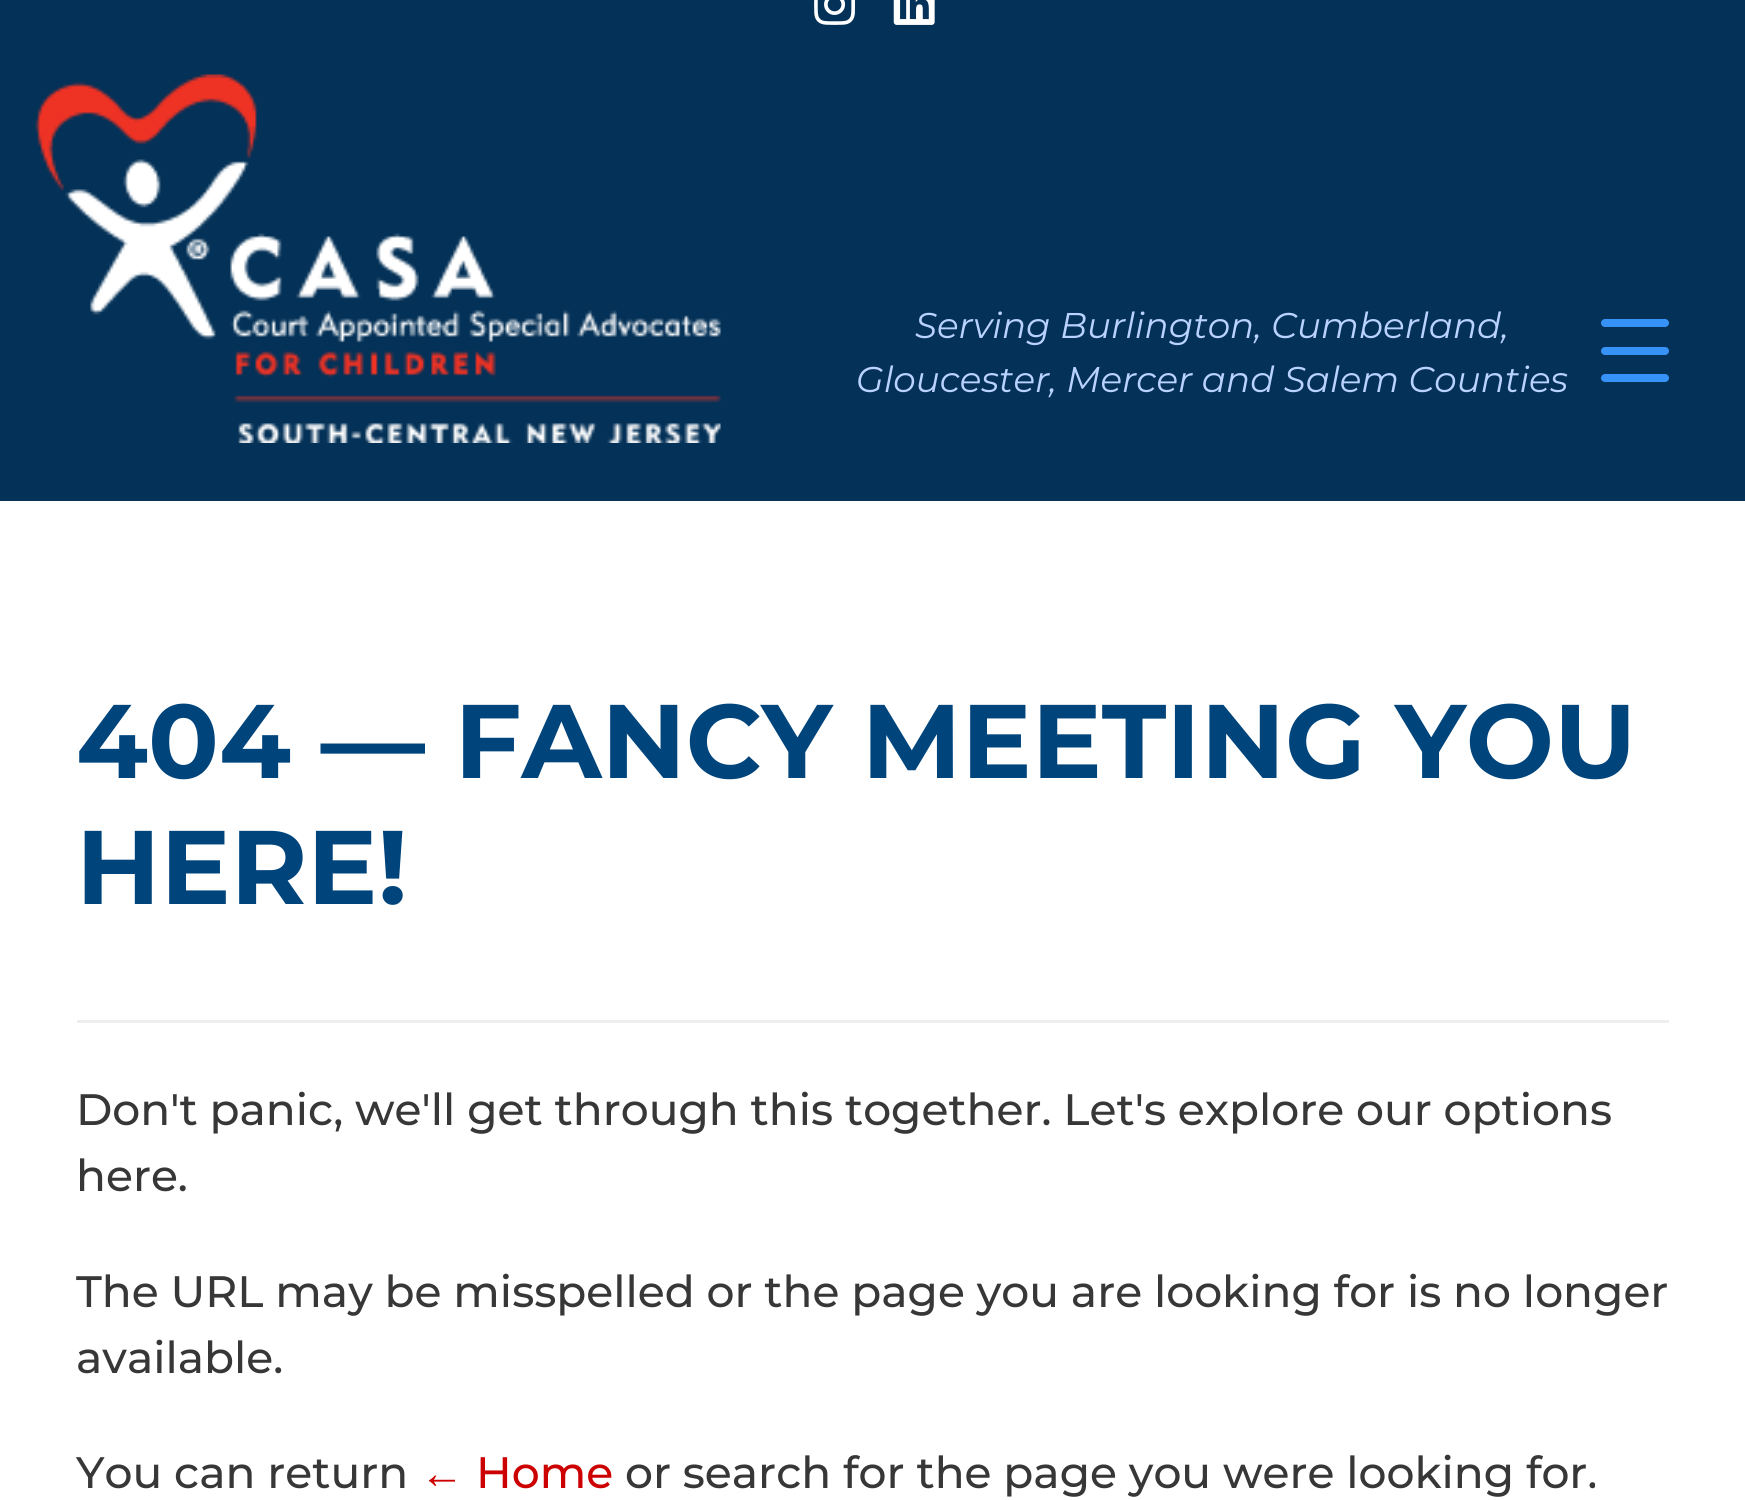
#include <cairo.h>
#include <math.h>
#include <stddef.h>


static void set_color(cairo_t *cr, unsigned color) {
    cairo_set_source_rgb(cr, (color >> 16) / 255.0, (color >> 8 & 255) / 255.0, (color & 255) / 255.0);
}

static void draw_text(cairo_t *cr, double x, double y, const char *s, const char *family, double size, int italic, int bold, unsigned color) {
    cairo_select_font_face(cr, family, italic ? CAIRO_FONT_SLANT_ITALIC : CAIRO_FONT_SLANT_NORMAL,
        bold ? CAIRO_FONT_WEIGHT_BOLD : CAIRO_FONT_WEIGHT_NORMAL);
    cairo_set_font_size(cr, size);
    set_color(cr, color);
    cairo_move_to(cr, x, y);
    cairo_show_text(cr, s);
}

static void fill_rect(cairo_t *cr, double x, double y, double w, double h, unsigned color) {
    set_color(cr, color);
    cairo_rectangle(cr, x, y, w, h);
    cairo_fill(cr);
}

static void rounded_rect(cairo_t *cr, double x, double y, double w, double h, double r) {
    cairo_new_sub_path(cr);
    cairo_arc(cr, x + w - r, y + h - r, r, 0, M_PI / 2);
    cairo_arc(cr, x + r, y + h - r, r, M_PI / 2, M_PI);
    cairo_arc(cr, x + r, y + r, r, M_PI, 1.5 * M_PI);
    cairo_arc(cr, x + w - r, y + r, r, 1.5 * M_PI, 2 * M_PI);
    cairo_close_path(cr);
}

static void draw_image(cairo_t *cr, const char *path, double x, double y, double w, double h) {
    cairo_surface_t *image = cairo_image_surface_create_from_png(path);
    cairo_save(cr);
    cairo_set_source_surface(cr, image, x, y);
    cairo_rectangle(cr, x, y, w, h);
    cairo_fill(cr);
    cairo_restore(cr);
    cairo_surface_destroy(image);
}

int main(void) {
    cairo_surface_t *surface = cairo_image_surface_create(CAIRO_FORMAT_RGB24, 1745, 1500);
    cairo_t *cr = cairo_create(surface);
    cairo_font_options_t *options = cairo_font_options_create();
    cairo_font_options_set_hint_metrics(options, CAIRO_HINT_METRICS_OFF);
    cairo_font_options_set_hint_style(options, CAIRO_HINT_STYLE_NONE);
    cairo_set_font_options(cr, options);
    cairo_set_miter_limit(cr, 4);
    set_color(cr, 0xFFFFFF);
    cairo_paint(cr);
    fill_rect(cr, 0, 0, 1745, 501, 0x043157);
    draw_image(cr, "assets/img1.png", 814, 0, 41, 25);
    draw_image(cr, "assets/img2.png", 893, 0, 42, 25);
    draw_image(cr, "assets/img3.png", 35, 74, 686, 369);
    draw_text(cr, 915, 338, "Serving Burlington, Cumberland,", "Montserrat", 35.75, 1, 0, 0xBAD2FF);
    draw_text(cr, 856, 392, "Gloucester, Mercer and Salem Counties", "Montserrat", 35.75, 1, 0, 0xBAD2FF);
    fill_rect(cr, 77, 1020, 1592, 3, 0xEEEEEE);
    draw_text(cr, 76, 778, "404 — FANCY MEETING YOU", "Montserrat", 104.5, 0, 1, 0x00447C);
    draw_text(cr, 76, 904, "HERE!", "Montserrat", 104.5, 0, 1, 0x00447C);
    draw_text(cr, 76, 1125, "Don't panic, we'll get through this together. Let's explore our options", "Montserrat Medium", 44, 0, 0, 0x373737);
    draw_text(cr, 76, 1191, "here.", "Montserrat Medium", 44, 0, 0, 0x373737);
    draw_text(cr, 76, 1307, "The URL may be misspelled or the page you are looking for is no longer", "Montserrat Medium", 44, 0, 0, 0x373737);
    draw_text(cr, 76, 1373, "available.", "Montserrat Medium", 44, 0, 0, 0x373737);
    draw_text(cr, 76, 1488, "You can return", "Montserrat Medium", 44, 0, 0, 0x373737);
    draw_text(cr, 420, 1488, "←", "Liberation Sans", 44, 0, 0, 0xCC0000);
    draw_text(cr, 476, 1488, "Home", "Montserrat Medium", 44, 0, 0, 0xCC0000);
    draw_text(cr, 625, 1488, "or search for the page you were looking for.", "Montserrat Medium", 44, 0, 0, 0x373737);
    set_color(cr, 0x3692F7);
    rounded_rect(cr, 1601, 347, 68, 8, 4);
    cairo_fill(cr);
    rounded_rect(cr, 1601, 319, 68, 8, 4);
    cairo_fill(cr);
    rounded_rect(cr, 1601, 374, 68, 8, 4);
    cairo_fill(cr);
    cairo_surface_write_to_png(surface, "output.png");
    cairo_font_options_destroy(options);
    cairo_destroy(cr);
    cairo_surface_destroy(surface);
    return 0;
}
